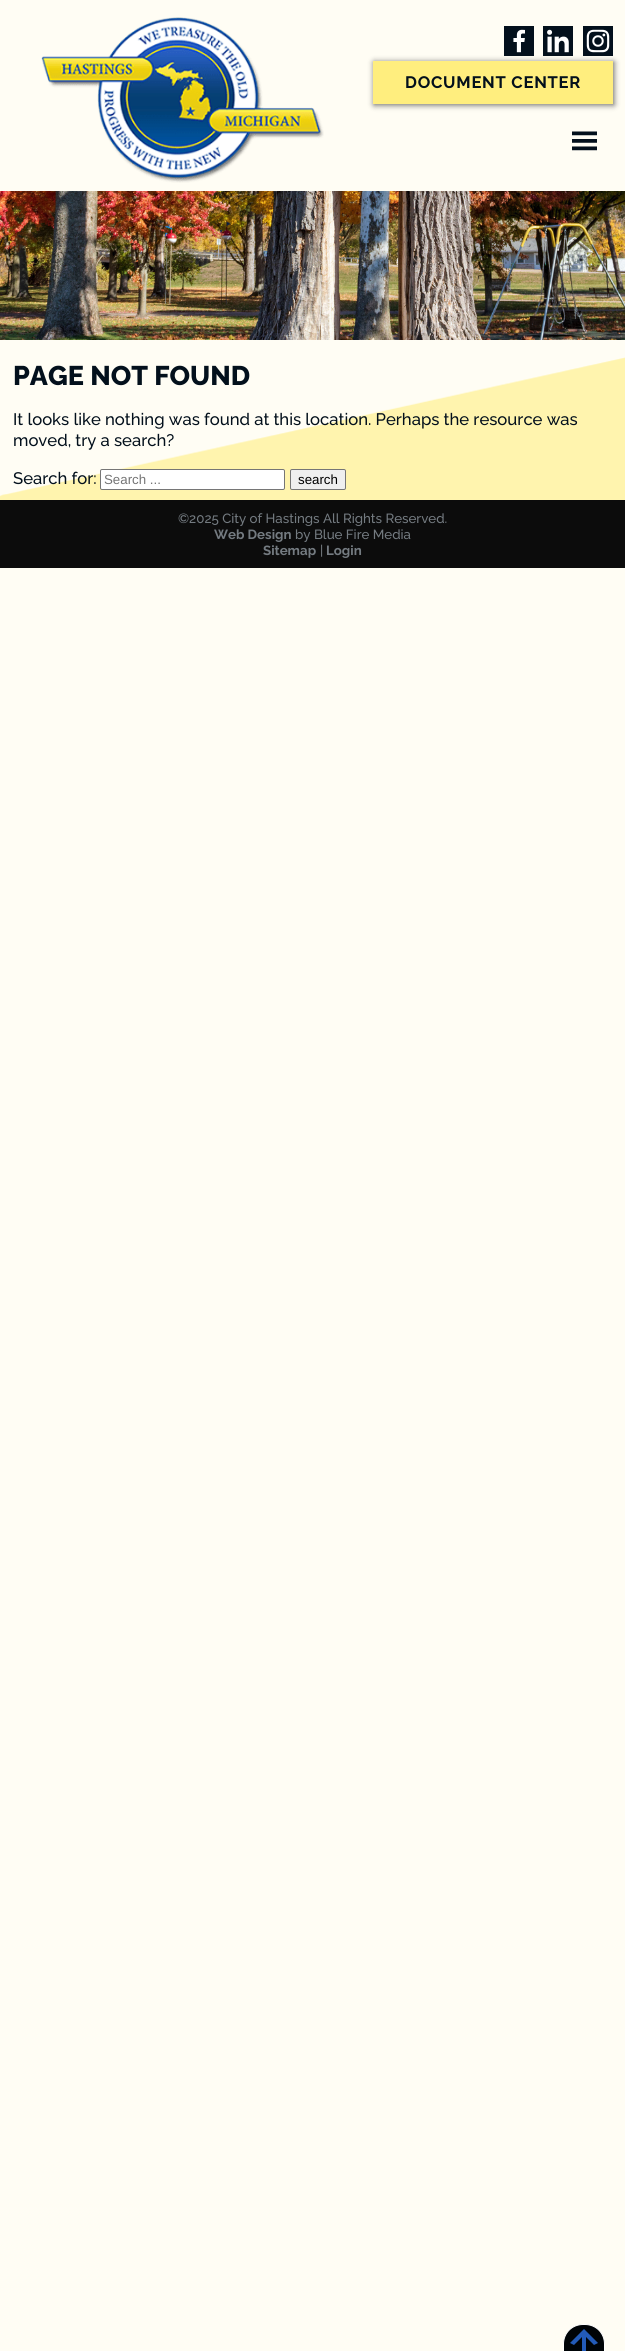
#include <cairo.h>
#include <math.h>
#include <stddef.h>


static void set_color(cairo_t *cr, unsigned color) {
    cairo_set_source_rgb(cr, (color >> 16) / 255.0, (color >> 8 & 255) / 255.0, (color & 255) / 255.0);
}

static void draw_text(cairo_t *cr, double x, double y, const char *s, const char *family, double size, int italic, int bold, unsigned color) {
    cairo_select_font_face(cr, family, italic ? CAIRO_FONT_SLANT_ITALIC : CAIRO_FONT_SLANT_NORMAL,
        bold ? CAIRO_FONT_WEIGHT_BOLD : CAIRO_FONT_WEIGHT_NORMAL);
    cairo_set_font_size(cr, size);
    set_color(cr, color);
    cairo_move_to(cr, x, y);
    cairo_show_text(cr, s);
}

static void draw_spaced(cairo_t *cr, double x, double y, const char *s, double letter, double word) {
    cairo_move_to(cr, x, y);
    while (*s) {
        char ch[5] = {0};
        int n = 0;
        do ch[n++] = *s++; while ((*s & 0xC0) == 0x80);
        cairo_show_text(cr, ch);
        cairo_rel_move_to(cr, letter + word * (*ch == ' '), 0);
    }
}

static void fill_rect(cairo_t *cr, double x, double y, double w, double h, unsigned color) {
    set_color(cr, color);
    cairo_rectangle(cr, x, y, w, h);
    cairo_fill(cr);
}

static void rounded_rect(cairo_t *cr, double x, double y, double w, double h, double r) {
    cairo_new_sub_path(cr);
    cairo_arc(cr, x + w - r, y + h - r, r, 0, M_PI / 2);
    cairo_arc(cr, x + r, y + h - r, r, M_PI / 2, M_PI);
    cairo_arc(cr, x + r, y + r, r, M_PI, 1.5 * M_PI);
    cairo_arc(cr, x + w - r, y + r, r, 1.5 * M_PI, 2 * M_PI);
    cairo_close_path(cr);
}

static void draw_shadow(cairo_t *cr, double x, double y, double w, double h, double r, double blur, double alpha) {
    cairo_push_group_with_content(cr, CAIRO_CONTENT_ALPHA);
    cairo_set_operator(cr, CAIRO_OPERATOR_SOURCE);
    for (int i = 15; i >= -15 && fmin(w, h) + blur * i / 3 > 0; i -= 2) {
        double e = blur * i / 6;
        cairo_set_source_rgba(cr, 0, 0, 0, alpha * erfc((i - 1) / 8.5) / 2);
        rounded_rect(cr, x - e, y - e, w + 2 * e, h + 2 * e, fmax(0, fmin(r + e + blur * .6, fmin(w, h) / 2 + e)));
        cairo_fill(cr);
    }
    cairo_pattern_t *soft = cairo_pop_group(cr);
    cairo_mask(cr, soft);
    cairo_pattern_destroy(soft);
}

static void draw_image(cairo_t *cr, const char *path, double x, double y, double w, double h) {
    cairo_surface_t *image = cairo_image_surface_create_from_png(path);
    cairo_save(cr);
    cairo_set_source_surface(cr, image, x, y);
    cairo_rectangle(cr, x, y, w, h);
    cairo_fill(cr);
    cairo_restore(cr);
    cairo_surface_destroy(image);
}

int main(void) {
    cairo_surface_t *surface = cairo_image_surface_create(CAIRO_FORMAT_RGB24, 625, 2351);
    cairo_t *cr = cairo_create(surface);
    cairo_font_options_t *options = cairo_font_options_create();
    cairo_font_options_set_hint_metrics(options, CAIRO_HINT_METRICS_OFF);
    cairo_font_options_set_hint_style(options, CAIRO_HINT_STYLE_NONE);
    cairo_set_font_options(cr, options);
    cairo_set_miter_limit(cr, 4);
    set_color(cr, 0xFFFDF4);
    cairo_paint(cr);
    draw_image(cr, "assets/img1.png", 41, 17, 283, 166);
    fill_rect(cr, 504, 26, 30, 30, 0x03101C);
    draw_image(cr, "assets/img2.png", 513, 29, 12, 24);
    fill_rect(cr, 543, 26, 30, 30, 0x03101C);
    draw_image(cr, "assets/img3.png", 547, 29, 22, 24);
    fill_rect(cr, 583, 26, 30, 30, 0x03101C);
    draw_image(cr, "assets/img4.png", 586, 29, 24, 24);
    set_color(cr, 0x000000);
    draw_shadow(cr, 374, 62, 240, 43, 0, 3, 0.6);
    fill_rect(cr, 373, 61, 240, 43, 0xFFEE7E);
    cairo_select_font_face(cr, "Raleway", CAIRO_FONT_SLANT_NORMAL, CAIRO_FONT_WEIGHT_BOLD);
    cairo_set_font_size(cr, 16.6);
    set_color(cr, 0x03101C);
    draw_spaced(cr, 405, 88, "DOCUMENT CENTER", 0.75, 0);
    draw_image(cr, "assets/img5.png", 572, 131, 25, 20);
    draw_image(cr, "assets/img6.png", 0, 191, 625, 149);
    draw_image(cr, "assets/img7.png", 0, 357, 625, 143);
    draw_text(cr, 13, 385, "PAGE NOT FOUND", "Raleway ExtraBold", 27, 0, 0, 0x03101C);
    draw_text(cr, 13, 425, "It looks like nothing was found at this location. Perhaps the resource was", "Raleway Medium", 16.65, 0, 0, 0x03101C);
    draw_text(cr, 13, 446, "moved, try a search?", "Raleway Medium", 16.65, 0, 0, 0x03101C);
    draw_text(cr, 13, 484, "Search for:", "Raleway Medium", 16.65, 0, 0, 0x03101C);
    set_color(cr, 0xFFFFFF);
    rounded_rect(cr, 100.5, 469.5, 184, 20, 1.5);
    cairo_fill_preserve(cr);
    set_color(cr, 0x767676);
    cairo_set_line_width(cr, 1);
    cairo_stroke(cr);
    draw_text(cr, 104, 484, "Search ...", "Liberation Sans", 13.3, 0, 0, 0x757575);
    set_color(cr, 0xEFEFEF);
    rounded_rect(cr, 290.5, 469.5, 55, 20, 1.5);
    cairo_fill_preserve(cr);
    set_color(cr, 0x767676);
    cairo_stroke(cr);
    draw_text(cr, 298, 484, "search", "Liberation Sans", 13.3, 0, 0, 0x000000);
    fill_rect(cr, 0, 500, 625, 68, 0x0C0C0C);
    draw_text(cr, 178, 523, "©2025 City of Hastings All Rights Reserved.", "Raleway Medium", 13.3, 0, 0, 0x747B81);
    draw_text(cr, 214, 539, "Web Design", "Raleway", 13.3, 0, 1, 0x747B81);
    draw_text(cr, 295, 539, "by Blue Fire Media", "Raleway Medium", 13.3, 0, 0, 0x747B81);
    draw_text(cr, 263, 555, "Sitemap", "Raleway", 13.3, 0, 1, 0x747B81);
    draw_text(cr, 320, 555, "|", "Raleway Medium", 13.3, 0, 0, 0x747B81);
    draw_text(cr, 326, 555, "Login", "Raleway", 13.3, 0, 1, 0x747B81);
    set_color(cr, 0x000407);
    cairo_new_path(cr);
    cairo_move_to(cr, 583, 2324.5);
    cairo_line_to(cr, 585, 2324.5);
    cairo_curve_to(cr, 596, 2324.5, 604.5, 2333, 604.5, 2344);
    cairo_line_to(cr, 604.5, 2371.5);
    cairo_line_to(cr, 563.5, 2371.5);
    cairo_line_to(cr, 563.5, 2344);
    cairo_curve_to(cr, 563.5, 2333, 572, 2324.5, 583, 2324.5);
    cairo_close_path(cr);
    cairo_fill_preserve(cr);
    set_color(cr, 0xFFFFFF);
    cairo_stroke(cr);
    set_color(cr, 0x235BB9);
    cairo_new_path(cr);
    cairo_move_to(cr, 586, 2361);
    cairo_line_to(cr, 582, 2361);
    cairo_line_to(cr, 582, 2337);
    cairo_line_to(cr, 574, 2345);
    cairo_line_to(cr, 570, 2343);
    cairo_line_to(cr, 584, 2329);
    cairo_line_to(cr, 598, 2343);
    cairo_line_to(cr, 594, 2345);
    cairo_line_to(cr, 586, 2337);
    cairo_close_path(cr);
    cairo_fill(cr);
    cairo_surface_write_to_png(surface, "output.png");
    cairo_font_options_destroy(options);
    cairo_destroy(cr);
    cairo_surface_destroy(surface);
    return 0;
}
